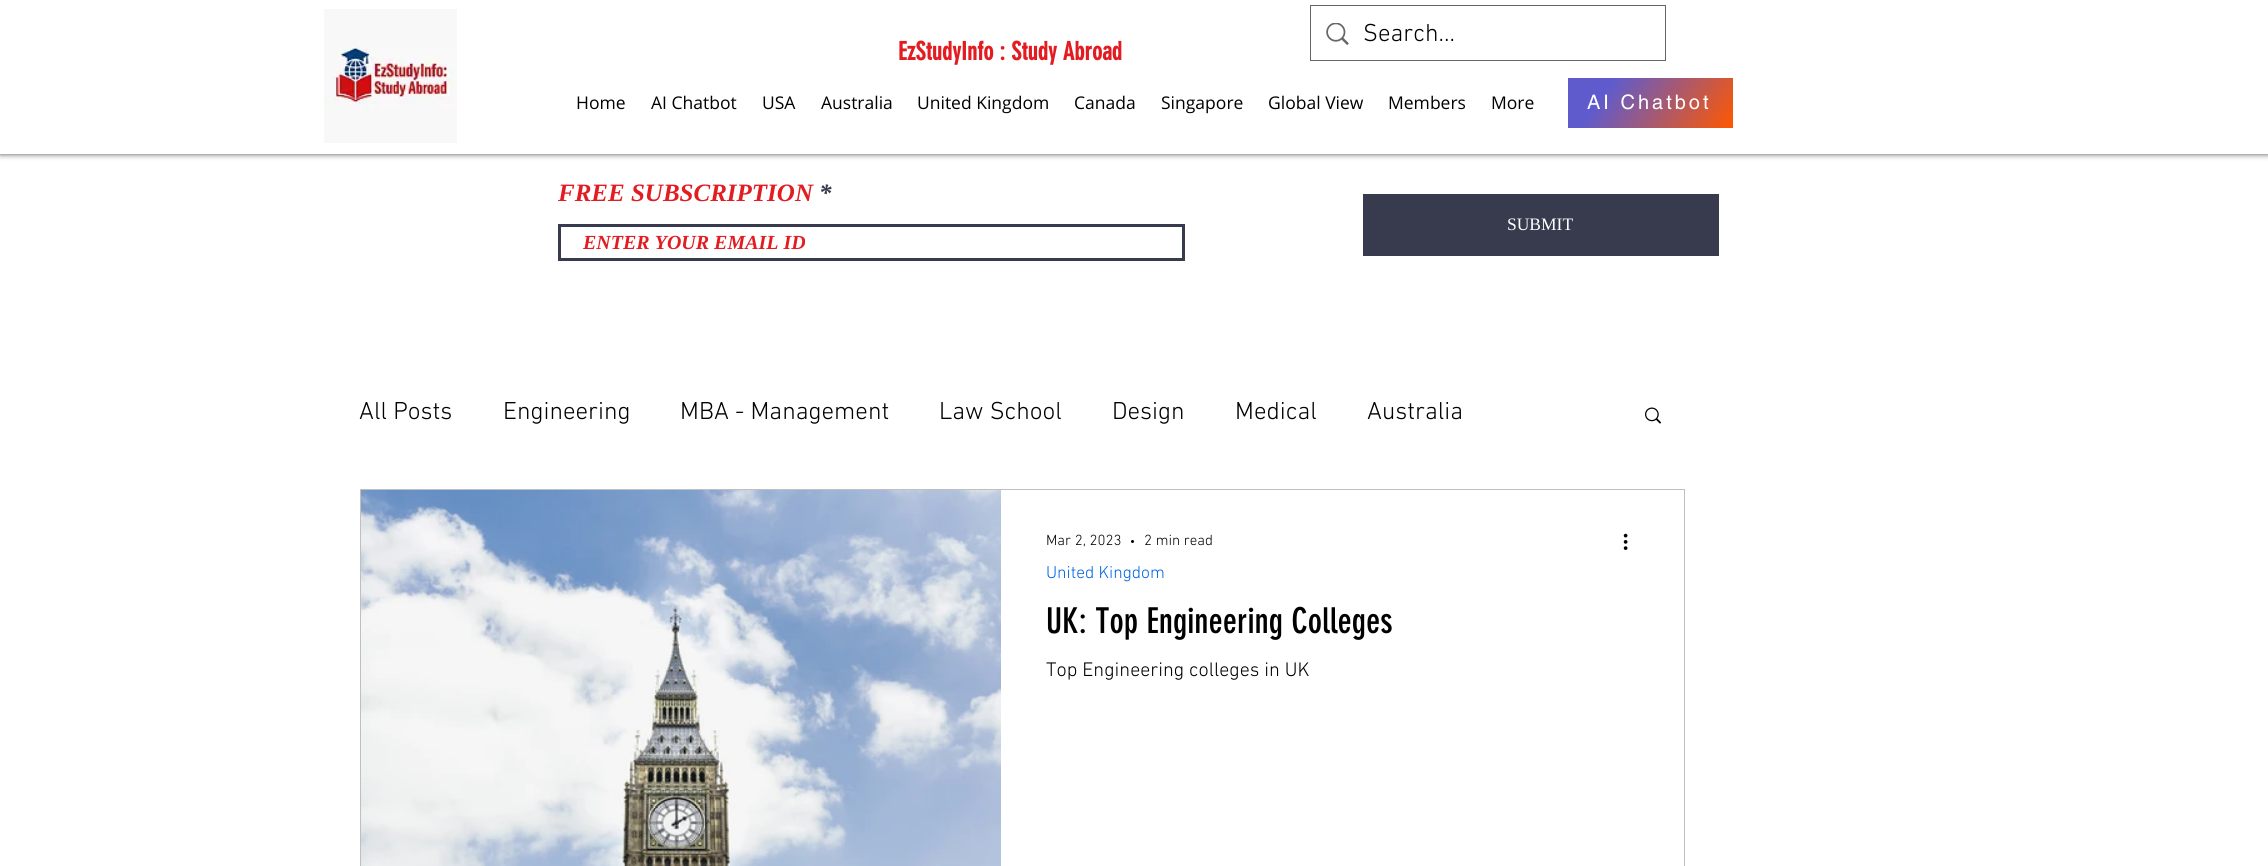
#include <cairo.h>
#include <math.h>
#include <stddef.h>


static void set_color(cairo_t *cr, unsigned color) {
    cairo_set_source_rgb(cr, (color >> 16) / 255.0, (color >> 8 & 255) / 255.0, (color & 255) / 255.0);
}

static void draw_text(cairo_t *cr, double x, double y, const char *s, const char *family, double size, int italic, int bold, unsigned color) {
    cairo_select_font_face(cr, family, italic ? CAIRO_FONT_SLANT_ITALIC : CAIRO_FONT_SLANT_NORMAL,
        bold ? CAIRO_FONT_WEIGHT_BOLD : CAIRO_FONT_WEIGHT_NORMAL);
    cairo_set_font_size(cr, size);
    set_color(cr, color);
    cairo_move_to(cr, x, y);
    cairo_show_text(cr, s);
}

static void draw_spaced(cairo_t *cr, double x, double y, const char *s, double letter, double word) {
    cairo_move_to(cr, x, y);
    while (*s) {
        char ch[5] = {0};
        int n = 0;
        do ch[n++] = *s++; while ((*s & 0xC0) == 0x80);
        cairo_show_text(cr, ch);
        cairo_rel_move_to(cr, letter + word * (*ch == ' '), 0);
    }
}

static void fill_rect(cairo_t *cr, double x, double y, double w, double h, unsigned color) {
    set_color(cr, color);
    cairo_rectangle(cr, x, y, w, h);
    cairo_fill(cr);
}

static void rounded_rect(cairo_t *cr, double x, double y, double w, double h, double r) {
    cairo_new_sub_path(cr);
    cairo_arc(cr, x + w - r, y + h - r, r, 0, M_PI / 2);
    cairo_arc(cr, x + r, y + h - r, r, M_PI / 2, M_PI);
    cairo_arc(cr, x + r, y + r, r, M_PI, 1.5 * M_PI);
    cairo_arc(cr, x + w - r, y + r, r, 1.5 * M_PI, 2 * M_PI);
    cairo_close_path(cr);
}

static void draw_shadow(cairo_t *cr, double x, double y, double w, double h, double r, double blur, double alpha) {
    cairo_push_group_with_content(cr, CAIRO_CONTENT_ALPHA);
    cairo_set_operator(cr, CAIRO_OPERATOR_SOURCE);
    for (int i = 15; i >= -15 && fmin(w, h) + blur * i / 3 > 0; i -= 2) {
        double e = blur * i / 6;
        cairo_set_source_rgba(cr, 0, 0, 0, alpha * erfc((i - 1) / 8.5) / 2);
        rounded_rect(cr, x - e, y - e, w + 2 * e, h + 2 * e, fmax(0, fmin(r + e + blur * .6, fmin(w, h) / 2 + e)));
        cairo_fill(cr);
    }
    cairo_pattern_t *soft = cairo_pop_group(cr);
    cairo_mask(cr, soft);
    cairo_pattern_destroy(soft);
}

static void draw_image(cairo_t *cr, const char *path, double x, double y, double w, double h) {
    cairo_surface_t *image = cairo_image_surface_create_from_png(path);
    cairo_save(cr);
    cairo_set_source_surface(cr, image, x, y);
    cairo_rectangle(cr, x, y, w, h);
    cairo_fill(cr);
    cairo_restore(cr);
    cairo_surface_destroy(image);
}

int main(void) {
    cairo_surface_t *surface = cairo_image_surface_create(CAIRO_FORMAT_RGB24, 2268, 866);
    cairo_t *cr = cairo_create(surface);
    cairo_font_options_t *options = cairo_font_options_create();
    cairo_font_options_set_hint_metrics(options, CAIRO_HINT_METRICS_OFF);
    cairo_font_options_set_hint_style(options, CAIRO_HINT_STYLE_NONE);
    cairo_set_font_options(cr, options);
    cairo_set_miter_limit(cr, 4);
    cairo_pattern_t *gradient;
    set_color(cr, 0xFFFFFF);
    cairo_paint(cr);
    cairo_save(cr);
    cairo_set_fill_rule(cr, CAIRO_FILL_RULE_EVEN_ODD);
    cairo_new_path(cr);
    cairo_move_to(cr, 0, 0);
    cairo_line_to(cr, 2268, 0);
    cairo_line_to(cr, 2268, 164);
    cairo_line_to(cr, 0, 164);
    cairo_close_path(cr);
    cairo_move_to(cr, 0, 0);
    cairo_line_to(cr, 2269, 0);
    cairo_line_to(cr, 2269, 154);
    cairo_line_to(cr, 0, 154);
    cairo_close_path(cr);
    cairo_clip(cr);
    set_color(cr, 0x000000);
    draw_shadow(cr, 0, 0, 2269, 154, 0, 3, 0.7);
    cairo_restore(cr);
    cairo_set_source_rgba(cr, 1, 1, 1, 0.6);
    cairo_rectangle(cr, 0, 153, 2268, 1);
    cairo_fill(cr);
    draw_image(cr, "assets/img1.png", 324, 9, 133, 134);
    cairo_rectangle(cr, 1310.5, 5.5, 355, 55);
    set_color(cr, 0x666666);
    cairo_set_line_width(cr, 1);
    cairo_stroke(cr);
    draw_image(cr, "assets/img2.png", 1326, 23, 23, 22);
    draw_text(cr, 1363, 41, "Search...", "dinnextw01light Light", 25, 0, 0, 0x000000);
    draw_text(cr, 898, 60, "EzStudyInfo : Study Abroad", "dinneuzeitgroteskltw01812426", 25, 0, 1, 0xE21C21);
    draw_text(cr, 576, 109, "Home", "Open Sans", 17.5, 0, 0, 0x000000);
    draw_text(cr, 651, 109, "AI Chatbot", "Open Sans", 17.5, 0, 0, 0x000000);
    draw_text(cr, 762, 109, "USA", "Open Sans", 17.5, 0, 0, 0x000000);
    draw_text(cr, 821, 109, "Australia", "Open Sans", 17.5, 0, 0, 0x000000);
    draw_text(cr, 917, 109, "United Kingdom", "Open Sans", 17.5, 0, 0, 0x000000);
    draw_text(cr, 1074, 109, "Canada", "Open Sans", 17.5, 0, 0, 0x000000);
    draw_text(cr, 1161, 109, "Singapore", "Open Sans", 17.5, 0, 0, 0x000000);
    draw_text(cr, 1268, 109, "Global View", "Open Sans", 17.5, 0, 0, 0x000000);
    draw_text(cr, 1388, 109, "Members", "Open Sans", 17.5, 0, 0, 0x000000);
    draw_text(cr, 1491, 109, "More", "Open Sans", 17.5, 0, 0, 0x000000);
    gradient = cairo_pattern_create_linear(1584, 55, 1716, 150);
    cairo_pattern_add_color_stop_rgba(gradient, 0.24, 0.373, 0.357, 0.804, 1);
    cairo_pattern_add_color_stop_rgba(gradient, 1, 1, 0.341, 0, 1);
    cairo_set_source(cr, gradient);
    cairo_pattern_destroy(gradient);
    cairo_rectangle(cr, 1568, 78, 165, 50);
    cairo_fill(cr);
    cairo_select_font_face(cr, "helvetica", CAIRO_FONT_SLANT_NORMAL, CAIRO_FONT_WEIGHT_NORMAL);
    cairo_set_font_size(cr, 20);
    set_color(cr, 0xFFFFFF);
    draw_spaced(cr, 1587, 109, "AI Chatbot", 3, 0);
    draw_text(cr, 558, 201, "FREE SUBSCRIPTION", "Liberation Serif", 25, 1, 1, 0xE21C21);
    draw_text(cr, 819, 201, "*", "Liberation Serif", 25, 1, 1, 0x373B4D);
    cairo_rectangle(cr, 559.5, 225.5, 624, 34);
    cairo_set_line_width(cr, 3);
    cairo_stroke(cr);
    draw_text(cr, 583, 249, "ENTER YOUR EMAIL ID", "Liberation Serif", 20, 1, 1, 0xE21C21);
    fill_rect(cr, 1363, 194, 356, 62, 0x373B4D);
    draw_text(cr, 1507, 230, "SUBMIT", "Liberation Serif", 17.5, 0, 0, 0xFFFFFF);
    draw_text(cr, 359, 419, "All Posts", "dinnextw01light Light", 25, 0, 0, 0x000000);
    draw_text(cr, 503, 419, "Engineering", "dinnextw01light Light", 25, 0, 0, 0x000000);
    draw_text(cr, 680, 419, "MBA - Management", "dinnextw01light Light", 25, 0, 0, 0x000000);
    draw_text(cr, 939, 419, "Law School", "dinnextw01light Light", 25, 0, 0, 0x000000);
    draw_text(cr, 1112, 419, "Design", "dinnextw01light Light", 25, 0, 0, 0x000000);
    draw_text(cr, 1235, 419, "Medical", "dinnextw01light Light", 25, 0, 0, 0x000000);
    draw_text(cr, 1367, 419, "Australia", "dinnextw01light Light", 25, 0, 0, 0x000000);
    draw_image(cr, "assets/img3.png", 1645, 407, 17, 17);
    cairo_rectangle(cr, 360.5, 489.5, 1324, 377);
    set_color(cr, 0xBFBFBF);
    cairo_set_line_width(cr, 1);
    cairo_stroke(cr);
    draw_image(cr, "assets/img4.png", 361, 490, 640, 376);
    draw_text(cr, 1046, 545, "Mar 2, 2023", "dinnextw01light Light", 15, 0, 0, 0x000000);
    cairo_new_path(cr);
    cairo_arc(cr, 1132.5, 541.5, 1.5, 0, 2 * M_PI);
    cairo_fill(cr);
    draw_text(cr, 1144, 545, "2 min read", "dinnextw01light Light", 15, 0, 0, 0x000000);
    draw_image(cr, "assets/img5.png", 1623, 533, 5, 17);
    draw_text(cr, 1046, 578, "United Kingdom", "dinnextw01light Light", 17.5, 0, 0, 0x0066E3);
    draw_text(cr, 1046, 633, "UK: Top Engineering Colleges", "dinneuzeitgroteskltw01812426", 35, 0, 0, 0x000000);
    draw_text(cr, 1046, 676, "Top Engineering colleges in UK", "dinnextw01light Light", 20, 0, 0, 0x000000);
    cairo_surface_write_to_png(surface, "output.png");
    cairo_font_options_destroy(options);
    cairo_destroy(cr);
    cairo_surface_destroy(surface);
    return 0;
}
